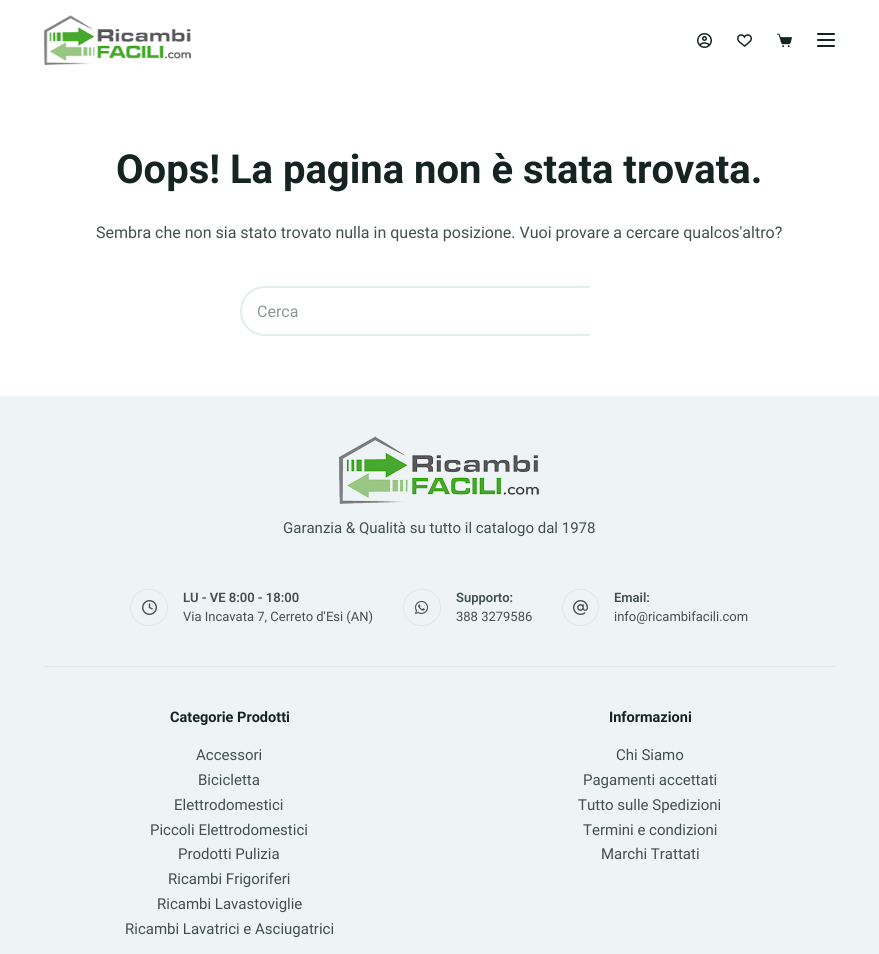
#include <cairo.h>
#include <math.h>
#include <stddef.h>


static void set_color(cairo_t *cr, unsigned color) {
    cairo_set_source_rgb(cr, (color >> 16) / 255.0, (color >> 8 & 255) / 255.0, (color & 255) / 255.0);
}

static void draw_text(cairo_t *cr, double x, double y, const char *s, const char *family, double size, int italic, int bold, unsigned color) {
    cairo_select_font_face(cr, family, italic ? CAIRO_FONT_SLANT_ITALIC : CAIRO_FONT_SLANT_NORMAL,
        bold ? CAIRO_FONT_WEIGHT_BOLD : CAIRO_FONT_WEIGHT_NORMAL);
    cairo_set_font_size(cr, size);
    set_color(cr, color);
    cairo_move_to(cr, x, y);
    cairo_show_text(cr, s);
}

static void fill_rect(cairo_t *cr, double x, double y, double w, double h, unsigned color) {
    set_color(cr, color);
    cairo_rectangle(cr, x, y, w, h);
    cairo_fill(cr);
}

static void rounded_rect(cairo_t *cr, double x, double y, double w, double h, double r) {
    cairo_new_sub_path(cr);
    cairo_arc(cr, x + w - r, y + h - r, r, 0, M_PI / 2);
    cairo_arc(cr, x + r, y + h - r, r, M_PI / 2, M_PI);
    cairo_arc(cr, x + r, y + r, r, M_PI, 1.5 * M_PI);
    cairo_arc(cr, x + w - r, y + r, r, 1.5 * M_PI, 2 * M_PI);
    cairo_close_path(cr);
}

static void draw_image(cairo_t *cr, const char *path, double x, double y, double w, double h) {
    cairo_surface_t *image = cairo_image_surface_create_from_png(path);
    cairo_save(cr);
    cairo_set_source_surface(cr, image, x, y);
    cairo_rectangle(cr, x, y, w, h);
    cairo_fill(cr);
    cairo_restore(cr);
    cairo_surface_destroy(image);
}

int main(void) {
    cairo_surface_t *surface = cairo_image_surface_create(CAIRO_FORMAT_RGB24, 879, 954);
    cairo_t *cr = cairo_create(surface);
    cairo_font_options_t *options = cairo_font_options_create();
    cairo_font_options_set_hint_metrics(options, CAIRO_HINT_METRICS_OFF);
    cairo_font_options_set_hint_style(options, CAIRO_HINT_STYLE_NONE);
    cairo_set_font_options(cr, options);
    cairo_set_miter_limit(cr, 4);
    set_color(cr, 0xFFFFFF);
    cairo_paint(cr);
    draw_image(cr, "assets/img1.png", 43, 15, 148, 50);
    draw_image(cr, "assets/img2.png", 697, 33, 15, 15);
    draw_image(cr, "assets/img3.png", 737, 34, 15, 13);
    draw_image(cr, "assets/img4.png", 777, 33, 15, 15);
    set_color(cr, 0x152420);
    rounded_rect(cr, 817, 33, 18, 2, 1);
    cairo_fill(cr);
    rounded_rect(cr, 817, 39, 18, 2, 1);
    cairo_fill(cr);
    rounded_rect(cr, 817, 45, 18, 2, 1);
    cairo_fill(cr);
    draw_text(cr, 116, 183, "Oops! La pagina non è stata trovata.", "Roboto", 40, 0, 1, 0x152420);
    draw_text(cr, 96, 238, "Sembra che non sia stato trovato nulla in questa posizione. Vuoi provare a cercare qualcos'altro?", "Roboto", 16, 0, 0, 0x42504B);
    set_color(cr, 0xE2EDEF);
    cairo_set_fill_rule(cr, CAIRO_FILL_RULE_EVEN_ODD);
    cairo_new_path(cr);
    cairo_move_to(cr, 265, 286);
    cairo_line_to(cr, 590, 286);
    cairo_line_to(cr, 590, 336);
    cairo_line_to(cr, 265, 336);
    cairo_curve_to(cr, 251, 336, 240, 325, 240, 311);
    cairo_curve_to(cr, 240, 297, 251, 286, 265, 286);
    cairo_close_path(cr);
    cairo_move_to(cr, 265, 288);
    cairo_line_to(cr, 590, 288);
    cairo_line_to(cr, 590, 334);
    cairo_line_to(cr, 265, 334);
    cairo_curve_to(cr, 252, 334, 242, 324, 242, 311);
    cairo_curve_to(cr, 242, 298, 252, 288, 265, 288);
    cairo_close_path(cr);
    cairo_fill(cr);
    draw_text(cr, 257, 317, "Cerca", "Roboto", 16, 0, 0, 0x8E9693);
    fill_rect(cr, 0, 396, 879, 558, 0xEEF4F5);
    fill_rect(cr, 44, 666, 791, 1, 0xDFE7E9);
    draw_image(cr, "assets/img5.png", 339, 436, 200, 68);
    draw_text(cr, 283, 533, "Garanzia & Qualità su tutto il catalogo dal 1978", "Roboto", 15, 0, 0, 0x42504B);
    rounded_rect(cr, 130.5, 589.5, 37, 36, 18);
    set_color(cr, 0xDFE7E9);
    cairo_set_line_width(cr, 1);
    cairo_stroke(cr);
    draw_image(cr, "assets/img6.png", 142, 600, 15, 15);
    draw_text(cr, 183, 602, "LU - VE 8:00 - 18:00", "Roboto SemiBold", 13, 0, 0, 0x42504B);
    draw_text(cr, 183, 621, "Via Incavata 7, Cerreto d'Esi (AN)", "Roboto", 13, 0, 0, 0x42504B);
    rounded_rect(cr, 403.5, 589.5, 37, 36, 18);
    set_color(cr, 0xDFE7E9);
    cairo_stroke(cr);
    draw_image(cr, "assets/img7.png", 415, 600, 14, 14);
    draw_text(cr, 456, 602, "Supporto:", "Roboto SemiBold", 13, 0, 0, 0x42504B);
    draw_text(cr, 456, 621, "388 3279586", "Roboto", 13, 0, 0, 0x42504B);
    cairo_new_path(cr);
    cairo_arc(cr, 580.5, 607.5, 18, 0, 2 * M_PI);
    set_color(cr, 0xDFE7E9);
    cairo_stroke(cr);
    draw_image(cr, "assets/img8.png", 573, 600, 15, 15);
    draw_text(cr, 614, 602, "Email:", "Roboto SemiBold", 13, 0, 0, 0x42504B);
    draw_text(cr, 614, 621, "info@ricambifacili.com", "Roboto", 13, 0, 0, 0x42504B);
    draw_text(cr, 170, 722, "Categorie Prodotti", "Roboto", 14.5, 0, 1, 0x152420);
    draw_text(cr, 196, 760, "Accessori", "Roboto", 15, 0, 0, 0x42504B);
    draw_text(cr, 198, 785, "Bicicletta", "Roboto", 15, 0, 0, 0x42504B);
    draw_text(cr, 174, 810, "Elettrodomestici", "Roboto", 15, 0, 0, 0x42504B);
    draw_text(cr, 150, 835, "Piccoli Elettrodomestici", "Roboto", 15, 0, 0, 0x42504B);
    draw_text(cr, 178, 859, "Prodotti Pulizia", "Roboto", 15, 0, 0, 0x42504B);
    draw_text(cr, 168, 884, "Ricambi Frigoriferi", "Roboto", 15, 0, 0, 0x42504B);
    draw_text(cr, 157, 909, "Ricambi Lavastoviglie", "Roboto", 15, 0, 0, 0x42504B);
    draw_text(cr, 125, 934, "Ricambi Lavatrici e Asciugatrici", "Roboto", 15, 0, 0, 0x42504B);
    draw_text(cr, 609, 722, "Informazioni", "Roboto", 14.5, 0, 1, 0x152420);
    draw_text(cr, 616, 760, "Chi Siamo", "Roboto", 15, 0, 0, 0x42504B);
    draw_text(cr, 583, 785, "Pagamenti accettati", "Roboto", 15, 0, 0, 0x42504B);
    draw_text(cr, 578, 810, "Tutto sulle Spedizioni", "Roboto", 15, 0, 0, 0x42504B);
    draw_text(cr, 583, 835, "Termini e condizioni", "Roboto", 15, 0, 0, 0x42504B);
    draw_text(cr, 601, 859, "Marchi Trattati", "Roboto", 15, 0, 0, 0x42504B);
    cairo_surface_write_to_png(surface, "output.png");
    cairo_font_options_destroy(options);
    cairo_destroy(cr);
    cairo_surface_destroy(surface);
    return 0;
}
